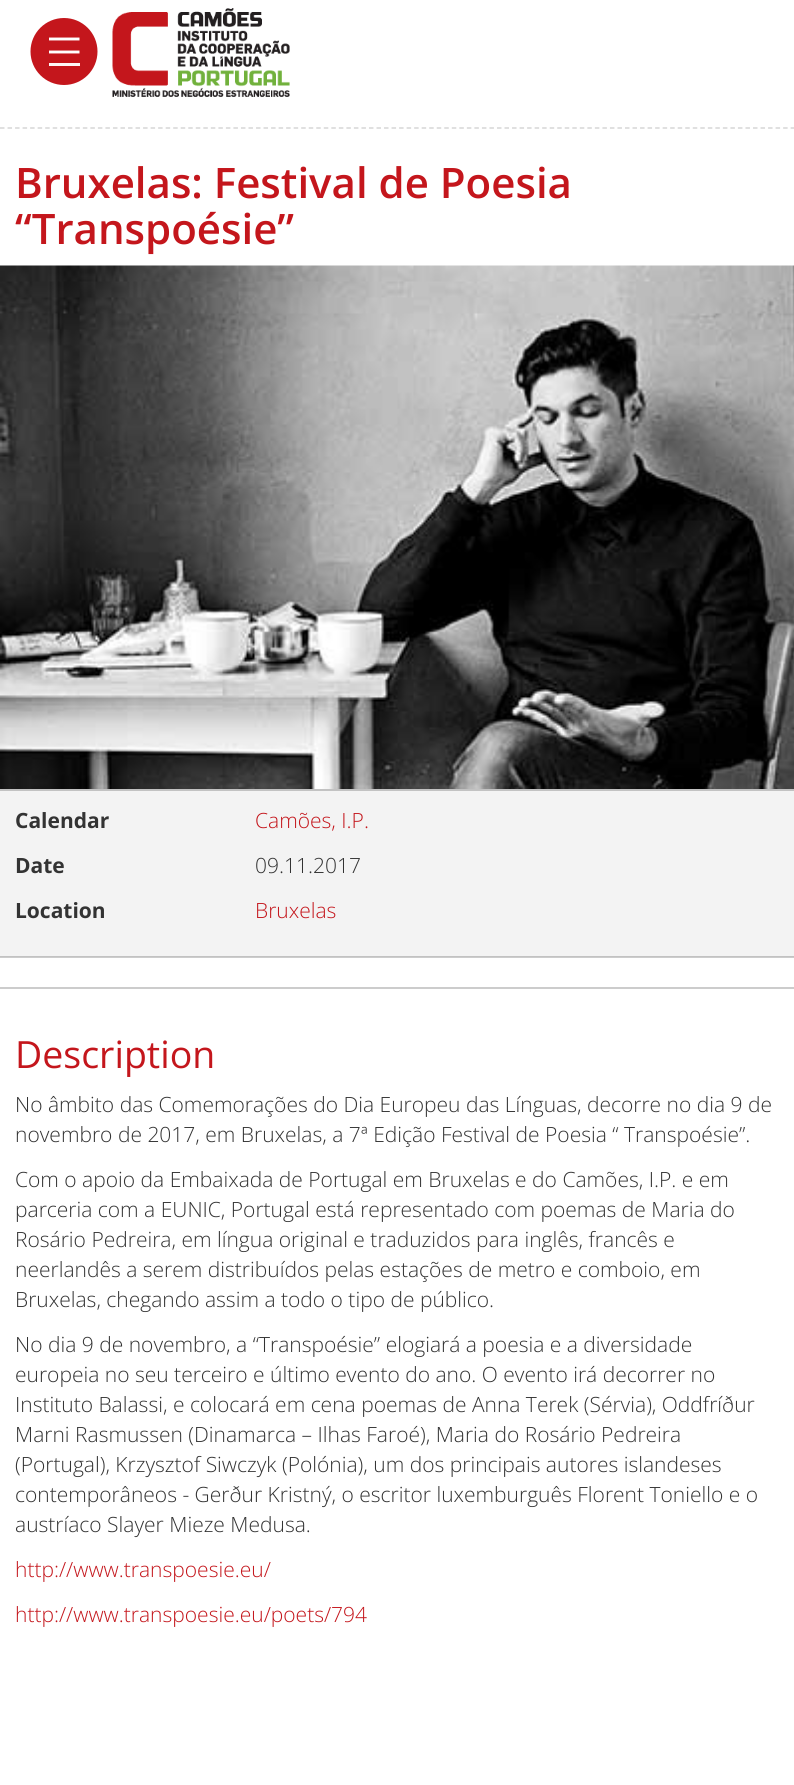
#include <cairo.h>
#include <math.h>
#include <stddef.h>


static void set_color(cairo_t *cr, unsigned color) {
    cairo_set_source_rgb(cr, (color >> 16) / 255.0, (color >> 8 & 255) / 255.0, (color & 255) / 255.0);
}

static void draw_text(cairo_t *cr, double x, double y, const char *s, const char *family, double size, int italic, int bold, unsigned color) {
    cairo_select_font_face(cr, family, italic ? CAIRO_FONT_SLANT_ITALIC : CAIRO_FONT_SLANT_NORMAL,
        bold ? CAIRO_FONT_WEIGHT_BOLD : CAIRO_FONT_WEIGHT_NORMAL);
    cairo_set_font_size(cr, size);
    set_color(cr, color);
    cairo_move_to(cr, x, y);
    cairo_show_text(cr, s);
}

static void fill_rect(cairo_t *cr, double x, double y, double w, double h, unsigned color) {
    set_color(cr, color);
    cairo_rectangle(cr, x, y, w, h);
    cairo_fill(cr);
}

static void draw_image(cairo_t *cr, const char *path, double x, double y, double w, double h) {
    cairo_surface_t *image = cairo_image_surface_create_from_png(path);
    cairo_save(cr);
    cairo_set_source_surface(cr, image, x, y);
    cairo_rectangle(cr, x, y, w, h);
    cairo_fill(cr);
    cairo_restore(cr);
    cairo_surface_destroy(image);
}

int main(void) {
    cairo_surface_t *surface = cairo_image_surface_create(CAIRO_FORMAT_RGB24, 794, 1785);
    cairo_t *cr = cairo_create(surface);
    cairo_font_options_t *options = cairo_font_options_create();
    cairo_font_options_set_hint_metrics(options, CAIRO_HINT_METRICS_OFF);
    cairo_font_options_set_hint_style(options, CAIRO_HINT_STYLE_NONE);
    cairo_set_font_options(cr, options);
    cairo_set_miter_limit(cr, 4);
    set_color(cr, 0xFFFFFF);
    cairo_paint(cr);
    fill_rect(cr, 0, 957, 794, 1, 0xCCCCCC);
    cairo_new_path(cr);
    cairo_move_to(cr, 0, 128);
    cairo_line_to(cr, 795, 128);
    set_color(cr, 0xD6D6D6);
    cairo_set_line_width(cr, 1.5);
    cairo_set_dash(cr, (double[]){4.5, 3.03}, 2, 0);
    cairo_stroke(cr);
    set_color(cr, 0xC4161C);
    cairo_arc(cr, 64, 51.5, 33.5, 0, 2 * M_PI);
    cairo_fill(cr);
    draw_image(cr, "assets/img1.png", 112, 8, 178, 89);
    cairo_new_path(cr);
    cairo_move_to(cr, 49, 39);
    cairo_line_to(cr, 79.5, 39);
    cairo_move_to(cr, 49, 52);
    cairo_line_to(cr, 79.5, 52);
    set_color(cr, 0xFFFFFF);
    cairo_set_line_width(cr, 2.9);
    cairo_set_dash(cr, NULL, 0, 0);
    cairo_stroke(cr);
    fill_rect(cr, 49, 63, 31, 3, 0xFDF7F7);
    draw_text(cr, 15, 198, "Bruxelas: Festival de Poesia", "Open Sans SemiBold", 42, 0, 0, 0xC4161C);
    draw_text(cr, 15, 244, "“Transpoésie”", "Open Sans SemiBold", 42, 0, 0, 0xC4161C);
    fill_rect(cr, 0, 789, 794, 2, 0xC2C2C2);
    draw_image(cr, "assets/img2.png", 0, 265, 794, 524);
    fill_rect(cr, 0, 791, 794, 165, 0xF3F3F3);
    fill_rect(cr, 0, 956, 794, 1, 0xC2C2C2);
    draw_text(cr, 15, 828, "Calendar", "Open Sans", 21, 0, 1, 0x333333);
    draw_text(cr, 255, 828, "Camões, I.P.", "Open Sans Light", 21, 0, 0, 0xC4161C);
    draw_text(cr, 15, 873, "Date", "Open Sans", 21, 0, 1, 0x333333);
    draw_text(cr, 255, 873, "09.11.2017", "Open Sans Light", 21, 0, 0, 0x333333);
    draw_text(cr, 15, 918, "Location", "Open Sans", 21, 0, 1, 0x333333);
    draw_text(cr, 255, 918, "Bruxelas", "Open Sans Light", 21, 0, 0, 0xC4161C);
    fill_rect(cr, 0, 987, 794, 2, 0xCCCCCC);
    draw_text(cr, 15, 1068, "Description", "Open Sans", 37.5, 0, 0, 0xC4161C);
    draw_text(cr, 15, 1112, "No âmbito das Comemorações do Dia Europeu das Línguas, decorre no dia 9 de", "Open Sans Light", 21, 0, 0, 0x333333);
    draw_text(cr, 15, 1142, "novembro de 2017, em Bruxelas, a 7ª Edição Festival de Poesia “ Transpoésie”.", "Open Sans Light", 21, 0, 0, 0x333333);
    draw_text(cr, 15, 1187, "Com o apoio da Embaixada de Portugal em Bruxelas e do Camões, I.P. e em", "Open Sans Light", 21, 0, 0, 0x333333);
    draw_text(cr, 15, 1217, "parceria com a EUNIC, Portugal está representado com poemas de Maria do", "Open Sans Light", 21, 0, 0, 0x333333);
    draw_text(cr, 15, 1247, "Rosário Pedreira, em língua original e traduzidos para inglês, francês e", "Open Sans Light", 21, 0, 0, 0x333333);
    draw_text(cr, 15, 1277, "neerlandês a serem distribuídos pelas estações de metro e comboio, em", "Open Sans Light", 21, 0, 0, 0x333333);
    draw_text(cr, 15, 1307, "Bruxelas, chegando assim a todo o tipo de público.", "Open Sans Light", 21, 0, 0, 0x333333);
    draw_text(cr, 15, 1352, "No dia 9 de novembro, a “Transpoésie” elogiará a poesia e a diversidade", "Open Sans Light", 21, 0, 0, 0x333333);
    draw_text(cr, 15, 1382, "europeia no seu terceiro e último evento do ano. O evento irá decorrer no", "Open Sans Light", 21, 0, 0, 0x333333);
    draw_text(cr, 15, 1412, "Instituto Balassi, e colocará em cena poemas de Anna Terek (Sérvia), Oddfríður", "Open Sans Light", 21, 0, 0, 0x333333);
    draw_text(cr, 15, 1442, "Marni Rasmussen (Dinamarca – Ilhas Faroé), Maria do Rosário Pedreira", "Open Sans Light", 21, 0, 0, 0x333333);
    draw_text(cr, 15, 1472, "(Portugal), Krzysztof Siwczyk (Polónia), um dos principais autores islandeses", "Open Sans Light", 21, 0, 0, 0x333333);
    draw_text(cr, 15, 1502, "contemporâneos - Gerður Kristný, o escritor luxemburguês Florent Toniello e o", "Open Sans Light", 21, 0, 0, 0x333333);
    draw_text(cr, 15, 1532, "austríaco Slayer Mieze Medusa.", "Open Sans Light", 21, 0, 0, 0x333333);
    draw_text(cr, 15, 1577, "http://www.transpoesie.eu/", "Open Sans Light", 21, 0, 0, 0xC4161C);
    draw_text(cr, 15, 1622, "http://www.transpoesie.eu/poets/794", "Open Sans Light", 21, 0, 0, 0xC4161C);
    cairo_surface_write_to_png(surface, "output.png");
    cairo_font_options_destroy(options);
    cairo_destroy(cr);
    cairo_surface_destroy(surface);
    return 0;
}
